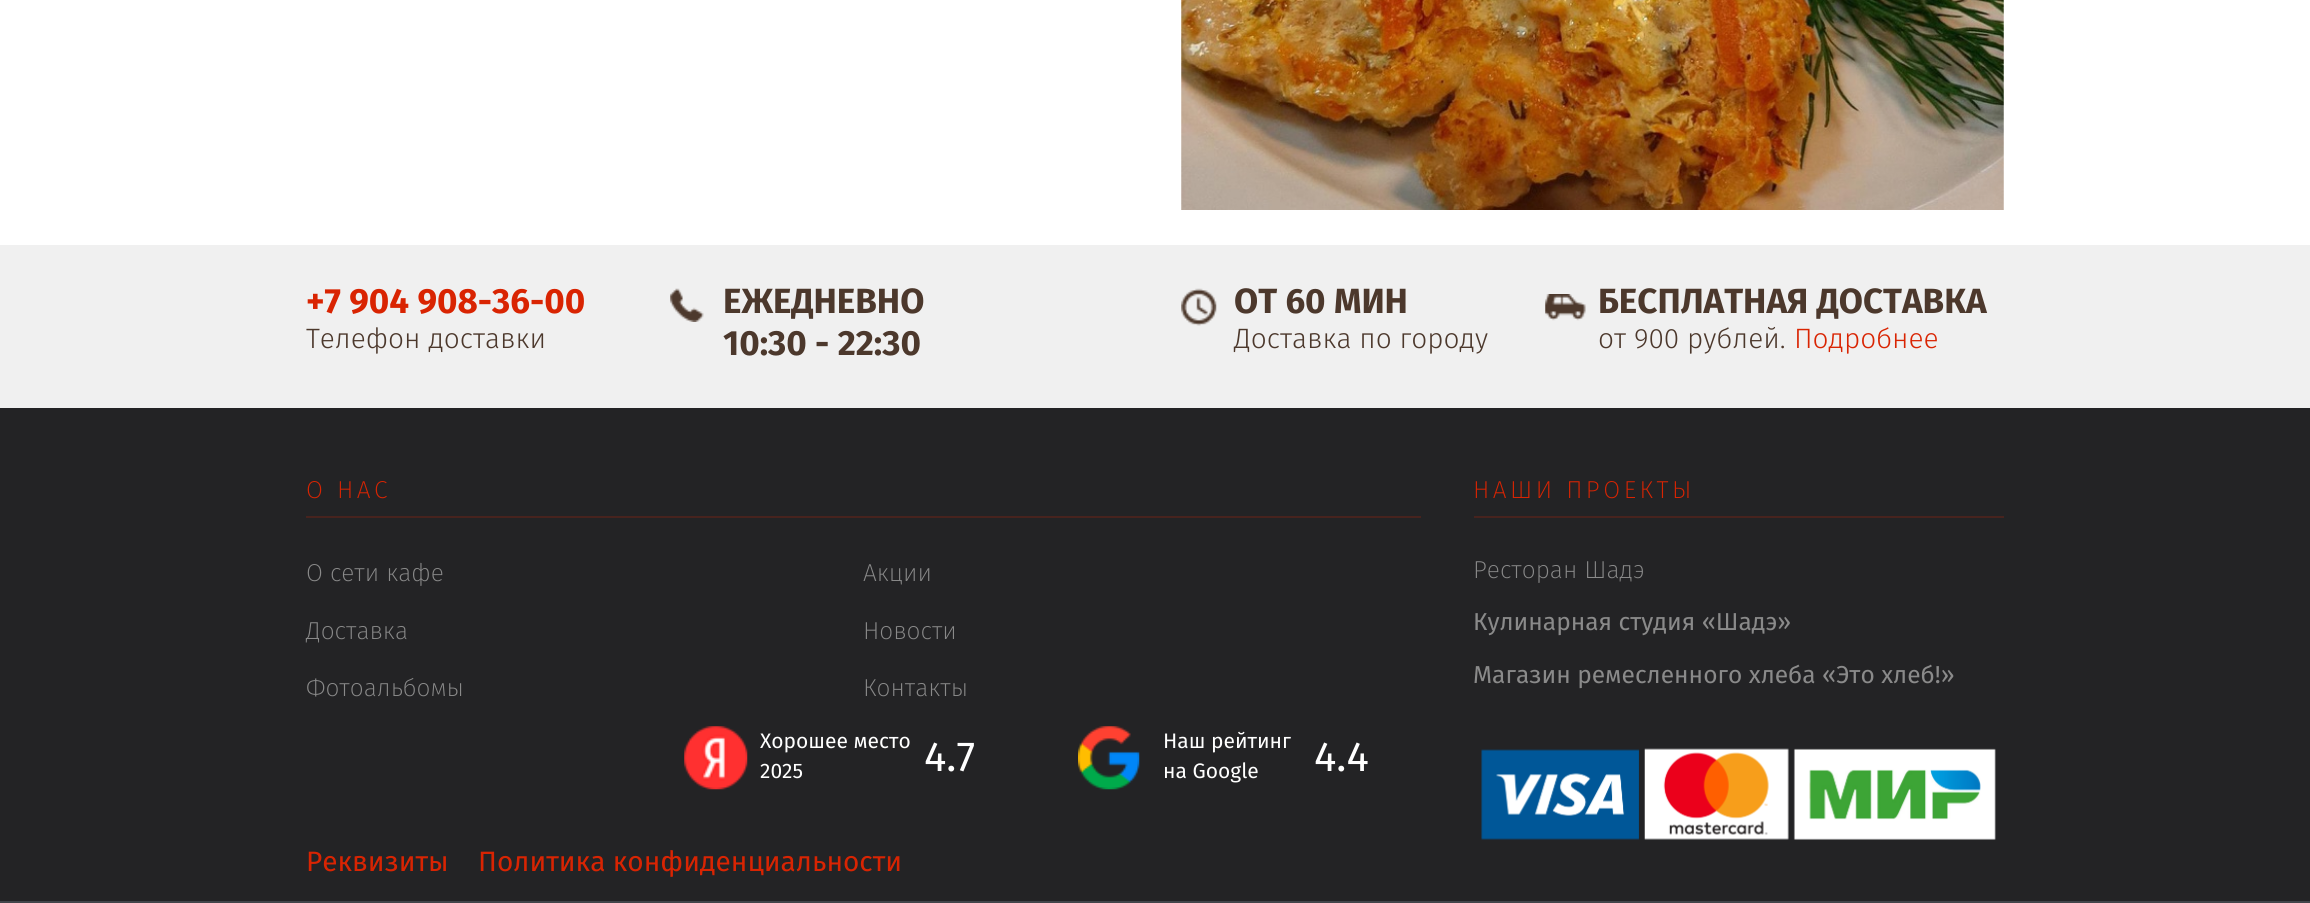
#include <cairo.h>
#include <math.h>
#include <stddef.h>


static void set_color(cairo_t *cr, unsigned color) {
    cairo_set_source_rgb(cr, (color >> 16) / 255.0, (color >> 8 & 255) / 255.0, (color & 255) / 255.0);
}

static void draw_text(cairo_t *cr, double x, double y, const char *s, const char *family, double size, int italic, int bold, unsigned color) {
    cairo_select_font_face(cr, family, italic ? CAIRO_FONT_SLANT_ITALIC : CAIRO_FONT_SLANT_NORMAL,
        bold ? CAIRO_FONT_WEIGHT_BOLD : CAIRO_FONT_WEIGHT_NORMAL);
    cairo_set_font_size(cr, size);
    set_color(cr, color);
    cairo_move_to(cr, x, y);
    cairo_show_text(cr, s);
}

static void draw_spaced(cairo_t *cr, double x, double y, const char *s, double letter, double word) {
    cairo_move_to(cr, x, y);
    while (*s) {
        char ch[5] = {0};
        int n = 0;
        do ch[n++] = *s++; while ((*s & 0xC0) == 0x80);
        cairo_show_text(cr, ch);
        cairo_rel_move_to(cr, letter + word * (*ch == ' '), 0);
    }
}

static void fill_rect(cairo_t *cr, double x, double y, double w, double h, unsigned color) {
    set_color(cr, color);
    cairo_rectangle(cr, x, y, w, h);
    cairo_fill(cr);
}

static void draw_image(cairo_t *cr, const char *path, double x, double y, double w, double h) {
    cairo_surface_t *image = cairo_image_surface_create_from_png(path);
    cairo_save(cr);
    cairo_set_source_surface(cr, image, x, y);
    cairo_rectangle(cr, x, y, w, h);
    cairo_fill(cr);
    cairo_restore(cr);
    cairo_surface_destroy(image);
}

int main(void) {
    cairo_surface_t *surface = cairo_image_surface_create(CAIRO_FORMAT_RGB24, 2310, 903);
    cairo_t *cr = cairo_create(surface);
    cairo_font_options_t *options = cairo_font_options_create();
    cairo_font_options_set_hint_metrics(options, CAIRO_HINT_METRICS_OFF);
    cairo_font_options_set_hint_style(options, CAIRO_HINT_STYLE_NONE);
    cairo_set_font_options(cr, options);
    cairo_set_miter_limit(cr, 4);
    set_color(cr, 0xFFFFFF);
    cairo_paint(cr);
    draw_image(cr, "assets/img1.png", 1181, 0, 823, 210);
    fill_rect(cr, 0, 245, 2310, 163, 0xF0F0F0);
    draw_text(cr, 306, 313, "+7 904 908-36-00", "Fira Sans", 35, 0, 1, 0xD92402);
    draw_text(cr, 306, 348, "Телефон доставки", "Fira Sans Light", 28, 0, 0, 0x4C382C);
    draw_image(cr, "assets/img2.png", 670, 288, 34, 34);
    draw_text(cr, 723, 313, "ЕЖЕДНЕВНО", "Fira Sans", 35, 0, 1, 0x4C382C);
    draw_text(cr, 723, 355, "10:30 - 22:30", "Fira Sans", 35, 0, 1, 0x4C382C);
    draw_image(cr, "assets/img3.png", 1181, 288, 36, 38);
    draw_text(cr, 1234, 313, "ОТ 60 МИН", "Fira Sans", 35, 0, 1, 0x4C382C);
    draw_text(cr, 1234, 348, "Доставка по городу", "Fira Sans Light", 28, 0, 0, 0x4C382C);
    draw_image(cr, "assets/img4.png", 1545, 294, 41, 27);
    draw_text(cr, 1598, 313, "БЕСПЛАТНАЯ ДОСТАВКА", "Fira Sans", 35, 0, 1, 0x4C382C);
    draw_text(cr, 1598, 348, "от 900 рублей.", "Fira Sans Light", 28, 0, 0, 0x4C382C);
    draw_text(cr, 1794, 348, "Подробнее", "Fira Sans Light", 28, 0, 0, 0xD92402);
    fill_rect(cr, 0, 408, 2310, 493, 0x232325);
    fill_rect(cr, 0, 901, 2310, 2, 0x42454A);
    fill_rect(cr, 306, 516, 1115, 2, 0x47231E);
    cairo_select_font_face(cr, "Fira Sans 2 Light", CAIRO_FONT_SLANT_NORMAL, CAIRO_FONT_WEIGHT_NORMAL);
    cairo_set_font_size(cr, 24.5);
    set_color(cr, 0xD92402);
    draw_spaced(cr, 306, 498, "О НАС", 3.5, 0);
    draw_text(cr, 306, 581, "О сети кафе", "Fira Sans 2 Light", 24.5, 0, 0, 0x8A8A8A);
    draw_text(cr, 306, 639, "Доставка", "Fira Sans 2 Light", 24.5, 0, 0, 0x8A8A8A);
    draw_text(cr, 306, 696, "Фотоальбомы", "Fira Sans 2 Light", 24.5, 0, 0, 0x8A8A8A);
    draw_text(cr, 863, 581, "Акции", "Fira Sans 2 Light", 24.5, 0, 0, 0x8A8A8A);
    draw_text(cr, 863, 639, "Новости", "Fira Sans 2 Light", 24.5, 0, 0, 0x8A8A8A);
    draw_text(cr, 863, 696, "Контакты", "Fira Sans 2 Light", 24.5, 0, 0, 0x8A8A8A);
    draw_image(cr, "assets/img5.png", 684, 726, 64, 64);
    draw_text(cr, 760, 748, "Хорошее место", "Fira Sans", 21, 0, 0, 0xFFFFFF);
    draw_text(cr, 760, 778, "2025", "Fira Sans", 21, 0, 0, 0xFFFFFF);
    draw_text(cr, 924, 771, "4.7", "Fira Sans", 42, 0, 0, 0xFFFFFF);
    draw_image(cr, "assets/img6.png", 1078, 726, 62, 64);
    draw_text(cr, 1163, 748, "Наш рейтинг", "Fira Sans", 21, 0, 0, 0xFFFFFF);
    draw_text(cr, 1163, 778, "на Google", "Fira Sans", 21, 0, 0, 0xFFFFFF);
    draw_text(cr, 1314, 771, "4.4", "Fira Sans", 42, 0, 0, 0xFFFFFF);
    fill_rect(cr, 1474, 516, 530, 2, 0x47231E);
    cairo_select_font_face(cr, "Fira Sans 2 Light", CAIRO_FONT_SLANT_NORMAL, CAIRO_FONT_WEIGHT_NORMAL);
    cairo_set_font_size(cr, 24.5);
    set_color(cr, 0xD92402);
    draw_spaced(cr, 1473, 498, "НАШИ ПРОЕКТЫ", 3.5, 0);
    draw_text(cr, 1473, 578, "Ресторан Шадэ", "Fira Sans 2 Light", 24.5, 0, 0, 0x8A8A8A);
    draw_text(cr, 1473, 630, "Кулинарная студия «Шадэ»", "Fira Sans", 24.5, 0, 0, 0x8A8A8A);
    draw_text(cr, 1473, 683, "Магазин ремесленного хлеба «Это хлеб!»", "Fira Sans", 24.5, 0, 0, 0x8A8A8A);
    draw_image(cr, "assets/img7.png", 1481, 748, 515, 92);
    draw_text(cr, 306, 871, "Реквизиты", "Fira Sans", 28, 0, 0, 0xD92402);
    draw_text(cr, 478, 871, "Политика конфиденциальности", "Fira Sans", 28, 0, 0, 0xD92402);
    cairo_surface_write_to_png(surface, "output.png");
    cairo_font_options_destroy(options);
    cairo_destroy(cr);
    cairo_surface_destroy(surface);
    return 0;
}
